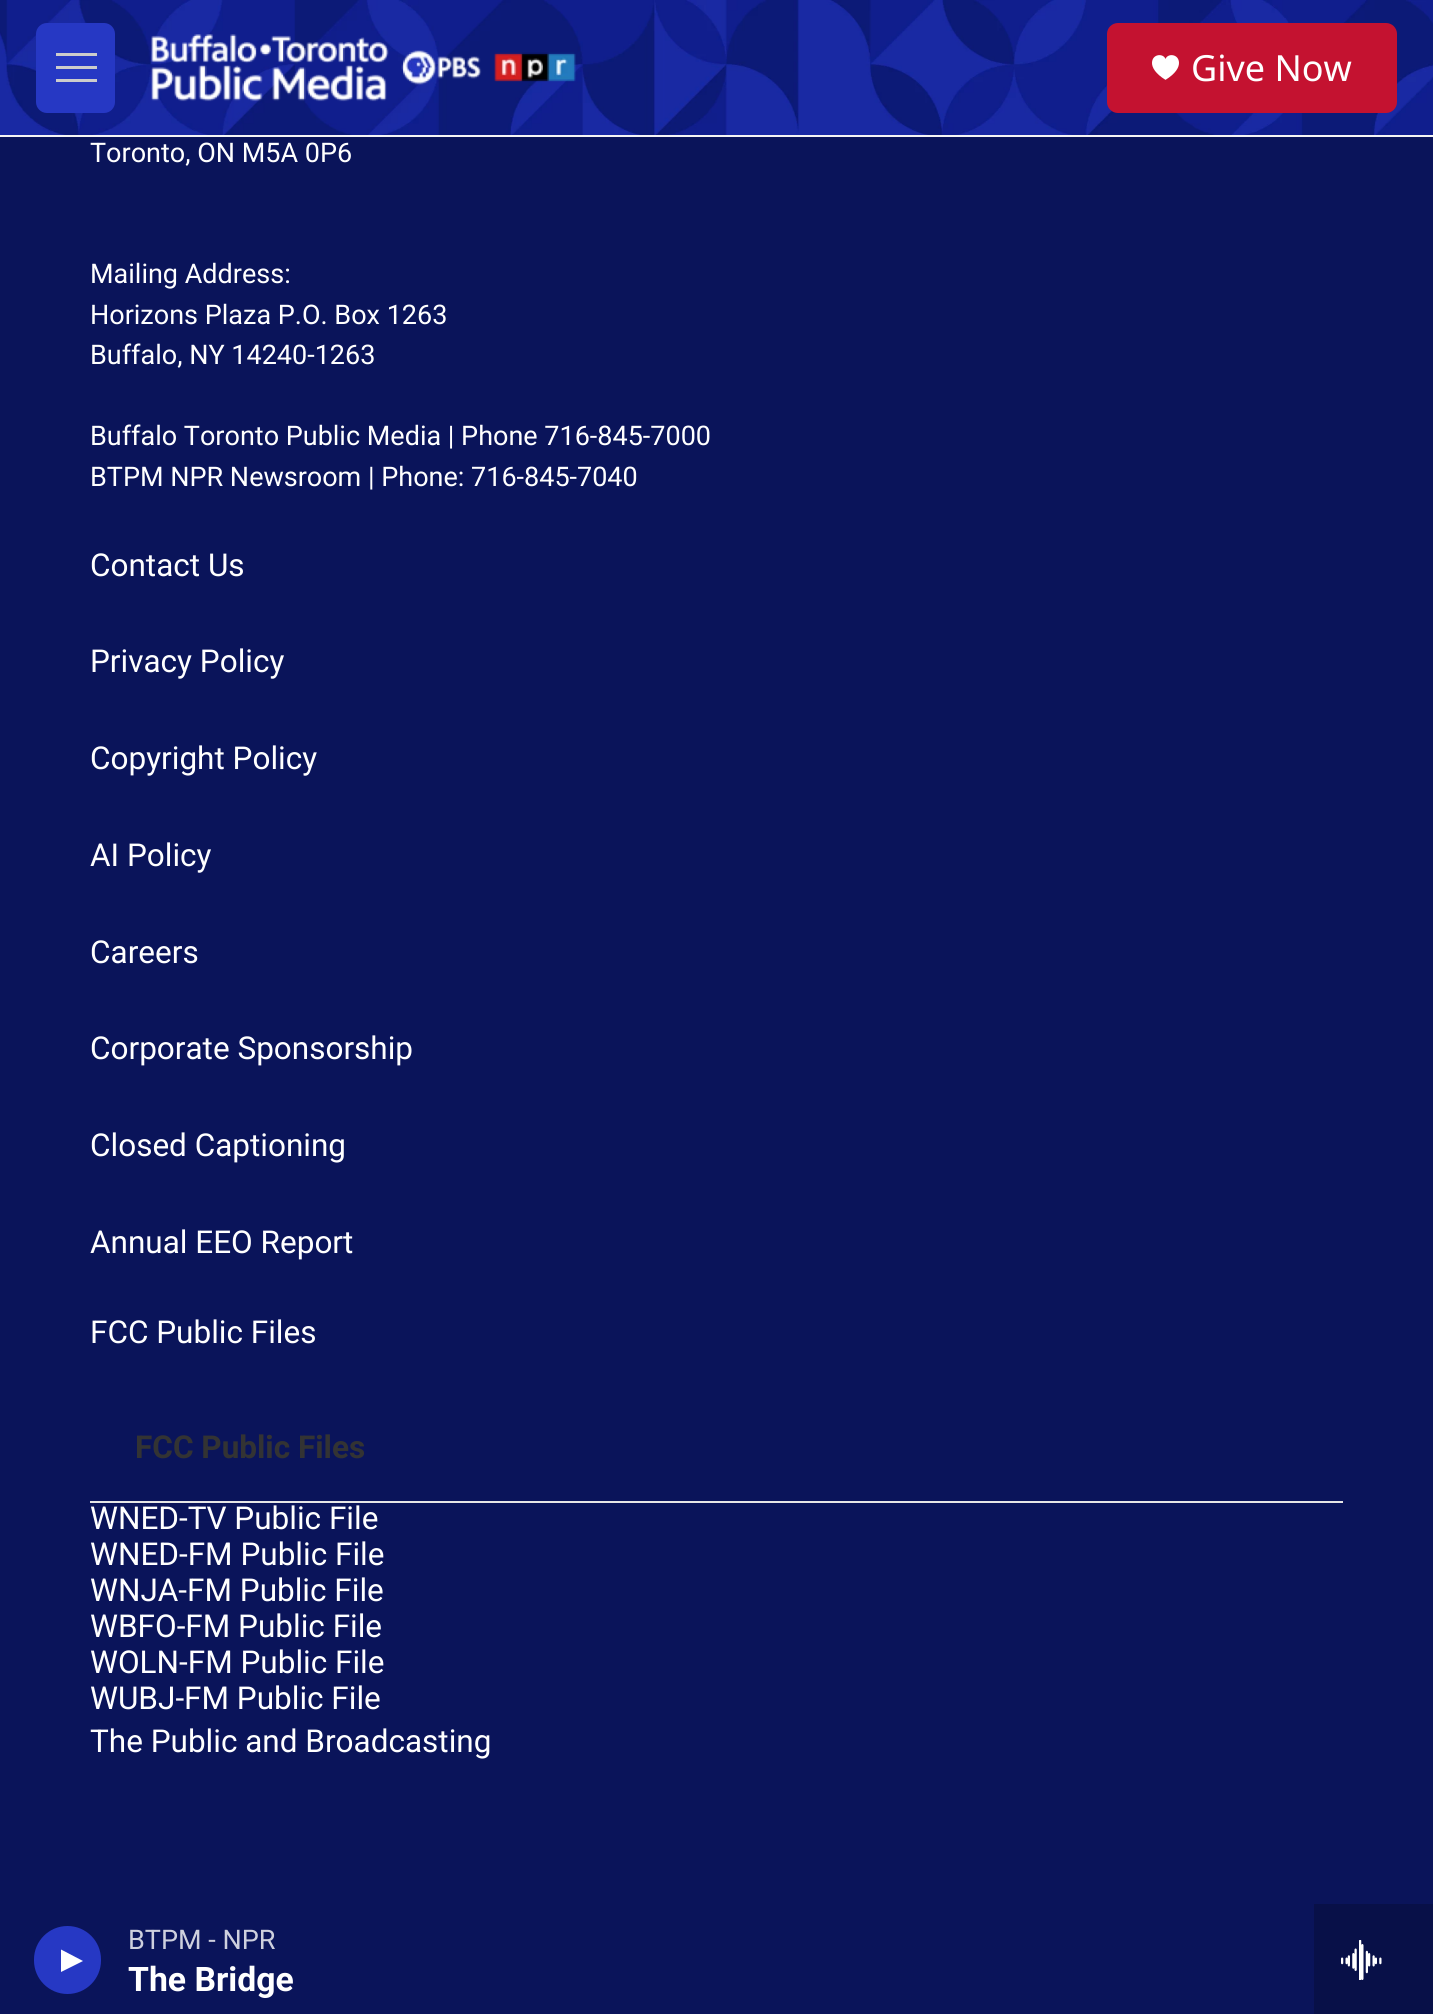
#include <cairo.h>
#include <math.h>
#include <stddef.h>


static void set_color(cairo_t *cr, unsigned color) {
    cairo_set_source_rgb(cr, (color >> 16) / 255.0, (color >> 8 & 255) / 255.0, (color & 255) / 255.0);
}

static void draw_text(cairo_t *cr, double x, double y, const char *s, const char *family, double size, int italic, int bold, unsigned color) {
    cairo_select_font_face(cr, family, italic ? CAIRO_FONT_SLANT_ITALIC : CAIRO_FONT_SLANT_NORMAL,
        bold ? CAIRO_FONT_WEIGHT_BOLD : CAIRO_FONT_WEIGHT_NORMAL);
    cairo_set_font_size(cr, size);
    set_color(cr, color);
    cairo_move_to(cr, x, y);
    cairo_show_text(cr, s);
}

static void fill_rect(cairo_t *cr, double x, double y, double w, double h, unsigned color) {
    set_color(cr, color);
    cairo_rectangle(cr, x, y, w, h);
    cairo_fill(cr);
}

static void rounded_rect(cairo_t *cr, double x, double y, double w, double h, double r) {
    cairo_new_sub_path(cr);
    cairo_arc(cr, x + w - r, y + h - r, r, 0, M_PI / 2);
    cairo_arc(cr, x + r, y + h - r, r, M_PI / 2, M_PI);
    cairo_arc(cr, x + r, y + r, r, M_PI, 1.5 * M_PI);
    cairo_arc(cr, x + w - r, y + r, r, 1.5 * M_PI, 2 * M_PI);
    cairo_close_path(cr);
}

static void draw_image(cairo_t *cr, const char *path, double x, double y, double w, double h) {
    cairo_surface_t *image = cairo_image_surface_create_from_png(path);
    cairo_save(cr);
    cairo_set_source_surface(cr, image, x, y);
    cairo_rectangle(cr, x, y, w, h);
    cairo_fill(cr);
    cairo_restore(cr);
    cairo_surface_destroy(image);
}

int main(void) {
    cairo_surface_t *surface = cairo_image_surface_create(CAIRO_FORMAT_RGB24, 1433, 2014);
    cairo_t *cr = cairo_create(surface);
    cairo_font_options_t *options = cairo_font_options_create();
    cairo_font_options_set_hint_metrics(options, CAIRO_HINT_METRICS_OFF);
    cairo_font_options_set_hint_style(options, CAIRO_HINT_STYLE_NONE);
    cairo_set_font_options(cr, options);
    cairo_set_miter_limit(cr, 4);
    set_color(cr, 0x0A145A);
    cairo_paint(cr);
    fill_rect(cr, 0, 135, 1433, 2, 0xF5F5F5);
    draw_image(cr, "assets/img1.png", 0, 0, 1433, 135);
    set_color(cr, 0x2638C4);
    rounded_rect(cr, 36, 23, 79, 90, 11);
    cairo_fill(cr);
    set_color(cr, 0xCCCCCC);
    cairo_set_fill_rule(cr, CAIRO_FILL_RULE_EVEN_ODD);
    cairo_new_path(cr);
    cairo_move_to(cr, 56, 69);
    cairo_line_to(cr, 56, 66);
    cairo_line_to(cr, 97, 66);
    cairo_line_to(cr, 97, 69);
    cairo_close_path(cr);
    cairo_move_to(cr, 56, 56);
    cairo_line_to(cr, 56, 53);
    cairo_line_to(cr, 97, 53);
    cairo_line_to(cr, 97, 56);
    cairo_close_path(cr);
    cairo_move_to(cr, 56, 82);
    cairo_line_to(cr, 56, 79);
    cairo_line_to(cr, 97, 79);
    cairo_line_to(cr, 97, 82);
    cairo_close_path(cr);
    cairo_fill(cr);
    draw_image(cr, "assets/img2.png", 151, 34, 425, 68);
    set_color(cr, 0xC41230);
    rounded_rect(cr, 1107, 23, 290, 90, 11);
    cairo_fill(cr);
    draw_image(cr, "assets/img3.png", 1152, 55, 27, 25);
    draw_text(cr, 1191, 81, "Give Now", "Noto Sans", 36, 0, 0, 0xFFFFFF);
    set_color(cr, 0x2638C4);
    rounded_rect(cr, 34, 1926, 67, 68, 33.5);
    cairo_fill(cr);
    set_color(cr, 0xFFFFFF);
    cairo_set_fill_rule(cr, CAIRO_FILL_RULE_WINDING);
    cairo_new_path(cr);
    cairo_move_to(cr, 61, 1949.5);
    cairo_line_to(cr, 83, 1961);
    cairo_line_to(cr, 61, 1972);
    cairo_close_path(cr);
    cairo_fill(cr);
    draw_text(cr, 128, 1949, "BTPM - NPR", "Roboto", 27, 0, 0, 0xCED0DE);
    draw_text(cr, 128, 1991, "The Bridge", "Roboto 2", 33.75, 0, 1, 0xFFFFFF);
    fill_rect(cr, 1314, 1904, 119, 110, 0x081048);
    draw_image(cr, "assets/img4.png", 1341, 1940, 41, 40);
    draw_text(cr, 90, 162, "Toronto, ON M5A 0P6", "Roboto", 27, 0, 0, 0xFFFFFF);
    draw_text(cr, 90, 283, "Mailing Address:", "Roboto", 27, 0, 0, 0xFFFFFF);
    draw_text(cr, 90, 324, "Horizons Plaza P.O. Box 1263", "Roboto", 27, 0, 0, 0xFFFFFF);
    draw_text(cr, 90, 364, "Buffalo, NY 14240-1263", "Roboto", 27, 0, 0, 0xFFFFFF);
    draw_text(cr, 90, 445, "Buffalo Toronto Public Media | Phone 716-845-7000", "Roboto", 27, 0, 0, 0xFFFFFF);
    draw_text(cr, 90, 486, "BTPM NPR Newsroom | Phone: 716-845-7040", "Roboto", 27, 0, 0, 0xFFFFFF);
    draw_text(cr, 90, 576, "Contact Us", "Roboto", 31.5, 0, 0, 0xFFFFFF);
    draw_text(cr, 90, 672, "Privacy Policy", "Roboto", 31.5, 0, 0, 0xFFFFFF);
    draw_text(cr, 90, 769, "Copyright Policy", "Roboto", 31.5, 0, 0, 0xFFFFFF);
    draw_text(cr, 90, 866, "AI Policy", "Roboto", 31.5, 0, 0, 0xFFFFFF);
    draw_text(cr, 90, 963, "Careers", "Roboto", 31.5, 0, 0, 0xFFFFFF);
    draw_text(cr, 90, 1059, "Corporate Sponsorship", "Roboto", 31.5, 0, 0, 0xFFFFFF);
    draw_text(cr, 90, 1156, "Closed Captioning", "Roboto", 31.5, 0, 0, 0xFFFFFF);
    draw_text(cr, 90, 1253, "Annual EEO Report", "Roboto", 31.5, 0, 0, 0xFFFFFF);
    draw_text(cr, 90, 1343, "FCC Public Files", "Roboto", 31.5, 0, 0, 0xFFFFFF);
    fill_rect(cr, 90, 1501, 1253, 2, 0xE6E6E6);
    draw_text(cr, 135, 1458, "FCC Public Files", "Roboto", 31.5, 0, 1, 0x333333);
    draw_text(cr, 90, 1529, "WNED-TV Public File", "Roboto", 31.5, 0, 0, 0xFFFFFF);
    draw_text(cr, 90, 1565, "WNED-FM Public File", "Roboto", 31.5, 0, 0, 0xFFFFFF);
    draw_text(cr, 90, 1601, "WNJA-FM Public File", "Roboto", 31.5, 0, 0, 0xFFFFFF);
    draw_text(cr, 90, 1637, "WBFO-FM Public File", "Roboto", 31.5, 0, 0, 0xFFFFFF);
    draw_text(cr, 90, 1673, "WOLN-FM Public File", "Roboto", 31.5, 0, 0, 0xFFFFFF);
    draw_text(cr, 90, 1709, "WUBJ-FM Public File", "Roboto", 31.5, 0, 0, 0xFFFFFF);
    draw_text(cr, 90, 1752, "The Public and Broadcasting", "Roboto", 31.5, 0, 0, 0xFFFFFF);
    cairo_surface_write_to_png(surface, "output.png");
    cairo_font_options_destroy(options);
    cairo_destroy(cr);
    cairo_surface_destroy(surface);
    return 0;
}
